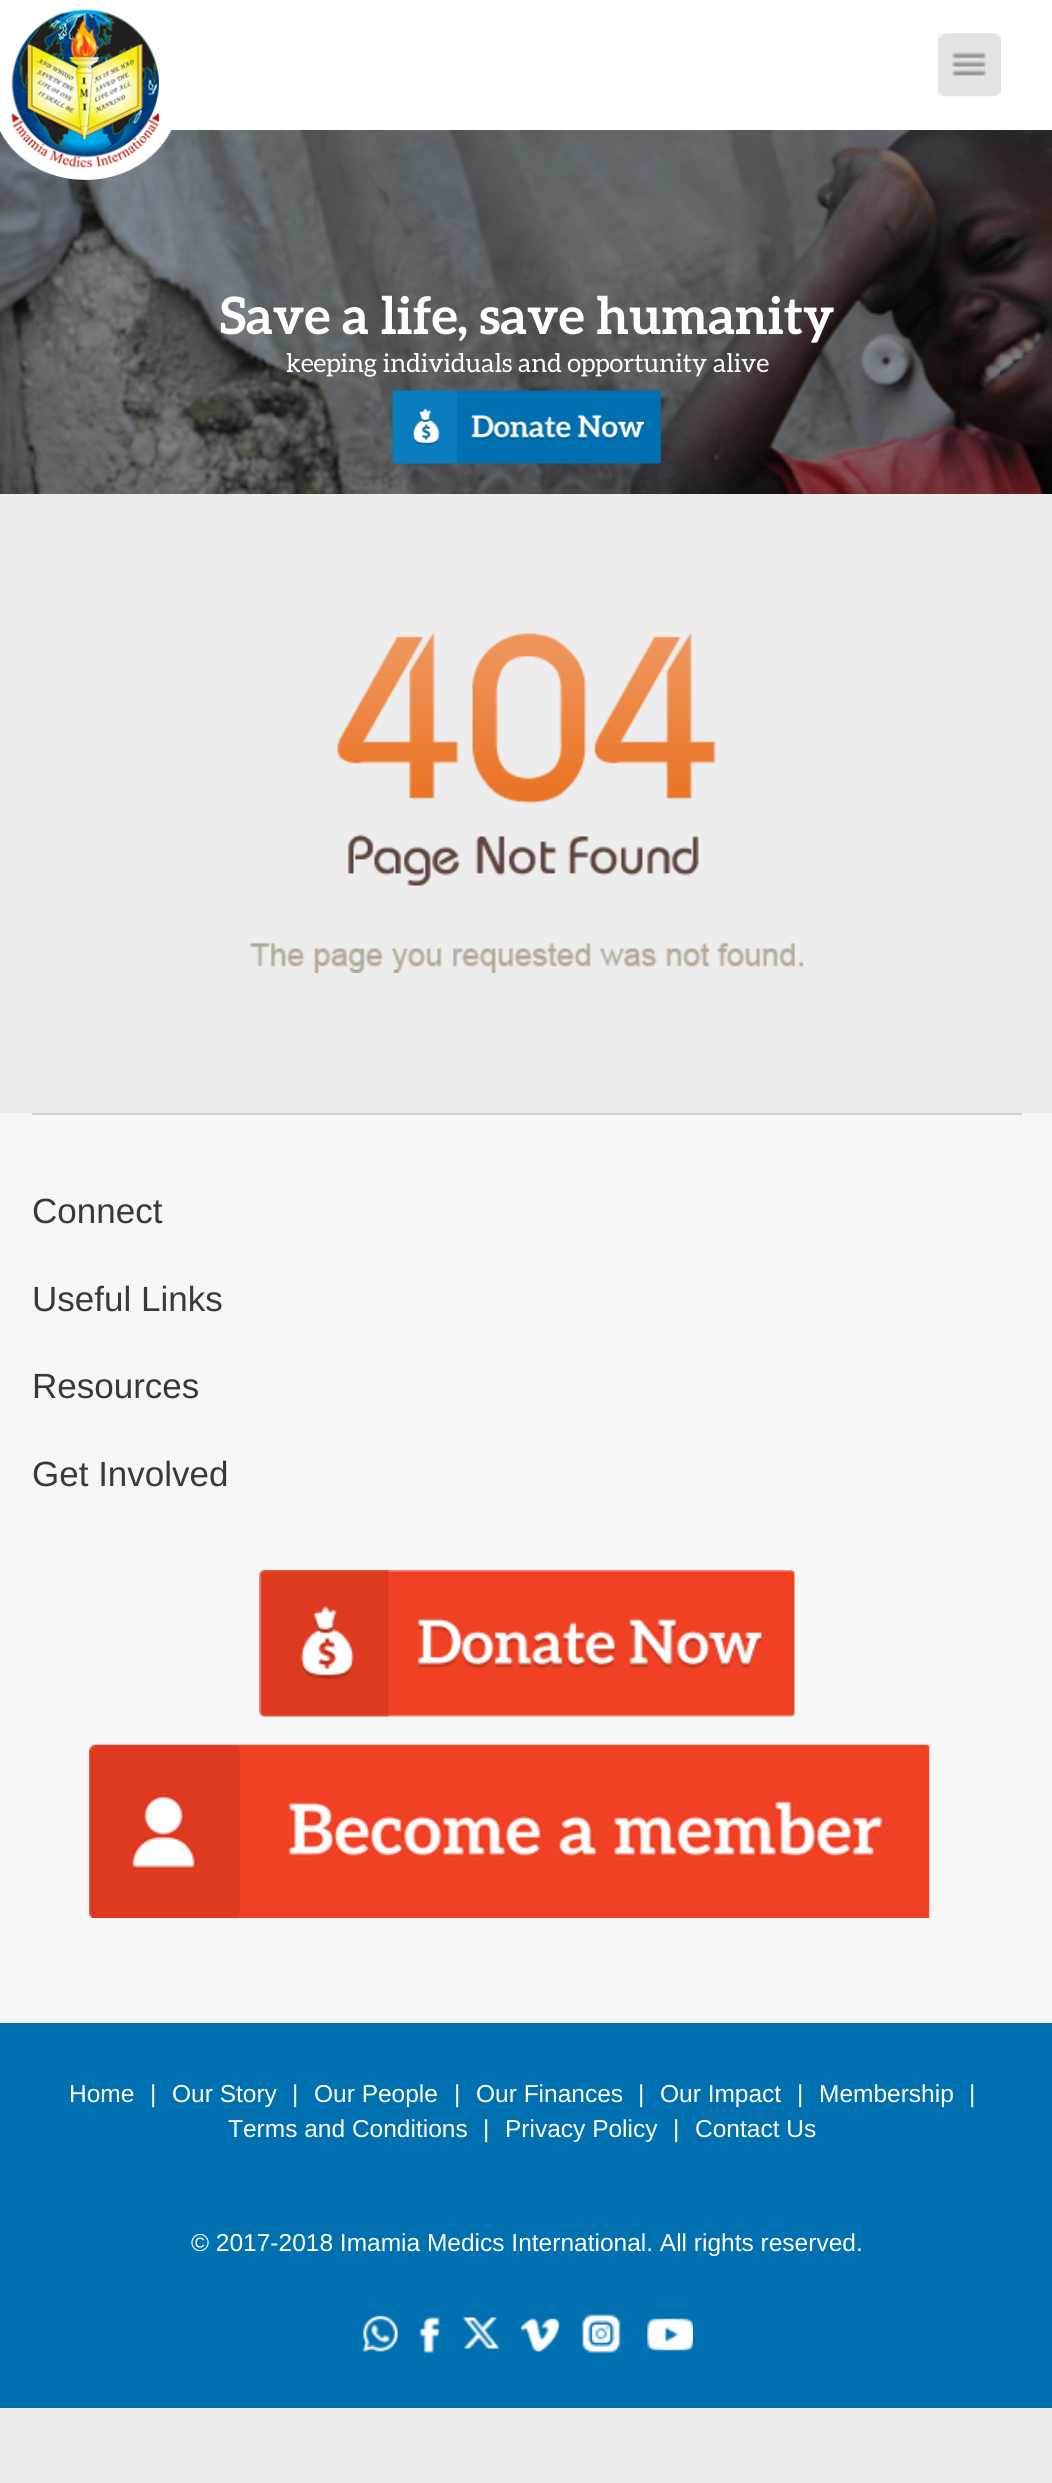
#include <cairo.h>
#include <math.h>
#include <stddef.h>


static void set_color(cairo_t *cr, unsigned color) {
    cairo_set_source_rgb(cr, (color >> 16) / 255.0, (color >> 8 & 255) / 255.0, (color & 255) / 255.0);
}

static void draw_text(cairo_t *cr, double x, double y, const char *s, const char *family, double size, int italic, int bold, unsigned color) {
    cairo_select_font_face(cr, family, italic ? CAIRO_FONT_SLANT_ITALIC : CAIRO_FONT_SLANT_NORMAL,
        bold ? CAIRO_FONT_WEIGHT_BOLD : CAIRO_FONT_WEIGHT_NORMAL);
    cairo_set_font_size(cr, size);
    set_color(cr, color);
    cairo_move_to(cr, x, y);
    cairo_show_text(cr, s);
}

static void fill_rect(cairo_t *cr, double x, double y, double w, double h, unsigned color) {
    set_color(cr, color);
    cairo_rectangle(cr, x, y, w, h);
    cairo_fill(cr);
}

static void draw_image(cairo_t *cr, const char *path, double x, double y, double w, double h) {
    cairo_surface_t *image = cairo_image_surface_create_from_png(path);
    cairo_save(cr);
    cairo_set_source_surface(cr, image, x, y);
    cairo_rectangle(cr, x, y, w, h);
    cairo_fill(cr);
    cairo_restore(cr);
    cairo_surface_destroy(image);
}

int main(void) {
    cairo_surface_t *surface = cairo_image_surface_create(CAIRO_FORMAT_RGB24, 1052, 2483);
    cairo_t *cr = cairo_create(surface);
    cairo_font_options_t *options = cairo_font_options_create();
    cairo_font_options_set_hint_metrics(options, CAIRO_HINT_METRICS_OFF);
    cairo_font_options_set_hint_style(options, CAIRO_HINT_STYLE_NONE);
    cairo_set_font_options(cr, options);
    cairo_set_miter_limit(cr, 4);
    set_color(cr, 0xEDEDED);
    cairo_paint(cr);
    fill_rect(cr, 0, 0, 1052, 130, 0xFFFFFF);
    draw_image(cr, "assets/img3.png", 0, 130, 1052, 364);
    draw_image(cr, "assets/img1.png", 0, 9, 172, 171);
    draw_image(cr, "assets/img2.png", 938, 33, 63, 64);
    draw_text(cr, 220, 334, "Save a life, save humanity", "Aleo", 51.5, 0, 1, 0xFFFFFF);
    draw_text(cr, 286, 372, "keeping individuals and opportunity alive", "Aleo", 25.75, 0, 0, 0xFFFFFF);
    draw_image(cr, "assets/img4.png", 392, 390, 270, 74);
    draw_image(cr, "assets/img5.png", 250, 633, 554, 340);
    fill_rect(cr, 0, 1113, 1052, 910, 0xF7F7F7);
    fill_rect(cr, 32, 1113, 990, 2, 0xD1D1D1);
    draw_text(cr, 32, 1223, "Connect", "Liberation Sans", 35, 0, 0, 0x3A3939);
    draw_text(cr, 32, 1311, "Useful Links", "Liberation Sans", 35, 0, 0, 0x3A3939);
    draw_text(cr, 32, 1398, "Resources", "Liberation Sans", 35, 0, 0, 0x3A3939);
    draw_text(cr, 32, 1486, "Get Involved", "Liberation Sans", 35, 0, 0, 0x3A3939);
    draw_image(cr, "assets/img6.png", 259, 1569, 536, 148);
    draw_image(cr, "assets/img7.png", 89, 1744, 841, 174);
    fill_rect(cr, 0, 2023, 1052, 385, 0x0070B0);
    draw_text(cr, 69, 2102, "Home", "Liberation Sans", 24.5, 0, 0, 0xFFFFFF);
    draw_text(cr, 150, 2102, "|", "Liberation Sans", 24.5, 0, 0, 0xFFFFFF);
    draw_text(cr, 172, 2102, "Our Story", "Liberation Sans", 24.5, 0, 0, 0xFFFFFF);
    draw_text(cr, 292, 2102, "|", "Liberation Sans", 24.5, 0, 0, 0xFFFFFF);
    draw_text(cr, 314, 2102, "Our People", "Liberation Sans", 24.5, 0, 0, 0xFFFFFF);
    draw_text(cr, 454, 2102, "|", "Liberation Sans", 24.5, 0, 0, 0xFFFFFF);
    draw_text(cr, 476, 2102, "Our Finances", "Liberation Sans", 24.5, 0, 0, 0xFFFFFF);
    draw_text(cr, 638, 2102, "|", "Liberation Sans", 24.5, 0, 0, 0xFFFFFF);
    draw_text(cr, 660, 2102, "Our Impact", "Liberation Sans", 24.5, 0, 0, 0xFFFFFF);
    draw_text(cr, 797, 2102, "|", "Liberation Sans", 24.5, 0, 0, 0xFFFFFF);
    draw_text(cr, 819, 2102, "Membership", "Liberation Sans", 24.5, 0, 0, 0xFFFFFF);
    draw_text(cr, 969, 2102, "|", "Liberation Sans", 24.5, 0, 0, 0xFFFFFF);
    draw_text(cr, 228, 2137, "Terms and Conditions", "Liberation Sans", 24.5, 0, 0, 0xFFFFFF);
    draw_text(cr, 483, 2137, "|", "Liberation Sans", 24.5, 0, 0, 0xFFFFFF);
    draw_text(cr, 505, 2137, "Privacy Policy", "Liberation Sans", 24.5, 0, 0, 0xFFFFFF);
    draw_text(cr, 673, 2137, "|", "Liberation Sans", 24.5, 0, 0, 0xFFFFFF);
    draw_text(cr, 695, 2137, "Contact Us", "Liberation Sans", 24.5, 0, 0, 0xFFFFFF);
    draw_text(cr, 191, 2251, "© 2017-2018 Imamia Medics International. All rights reserved.", "Liberation Sans", 24.5, 0, 0, 0xFFFFFF);
    draw_image(cr, "assets/img8.png", 363, 2315, 35, 37);
    draw_image(cr, "assets/img9.png", 419, 2317, 21, 36);
    draw_image(cr, "assets/img10.png", 462, 2317, 38, 32);
    draw_image(cr, "assets/img11.png", 520, 2318, 40, 34);
    draw_image(cr, "assets/img12.png", 581, 2314, 40, 39);
    draw_image(cr, "assets/img13.png", 647, 2318, 46, 34);
    cairo_surface_write_to_png(surface, "output.png");
    cairo_font_options_destroy(options);
    cairo_destroy(cr);
    cairo_surface_destroy(surface);
    return 0;
}
